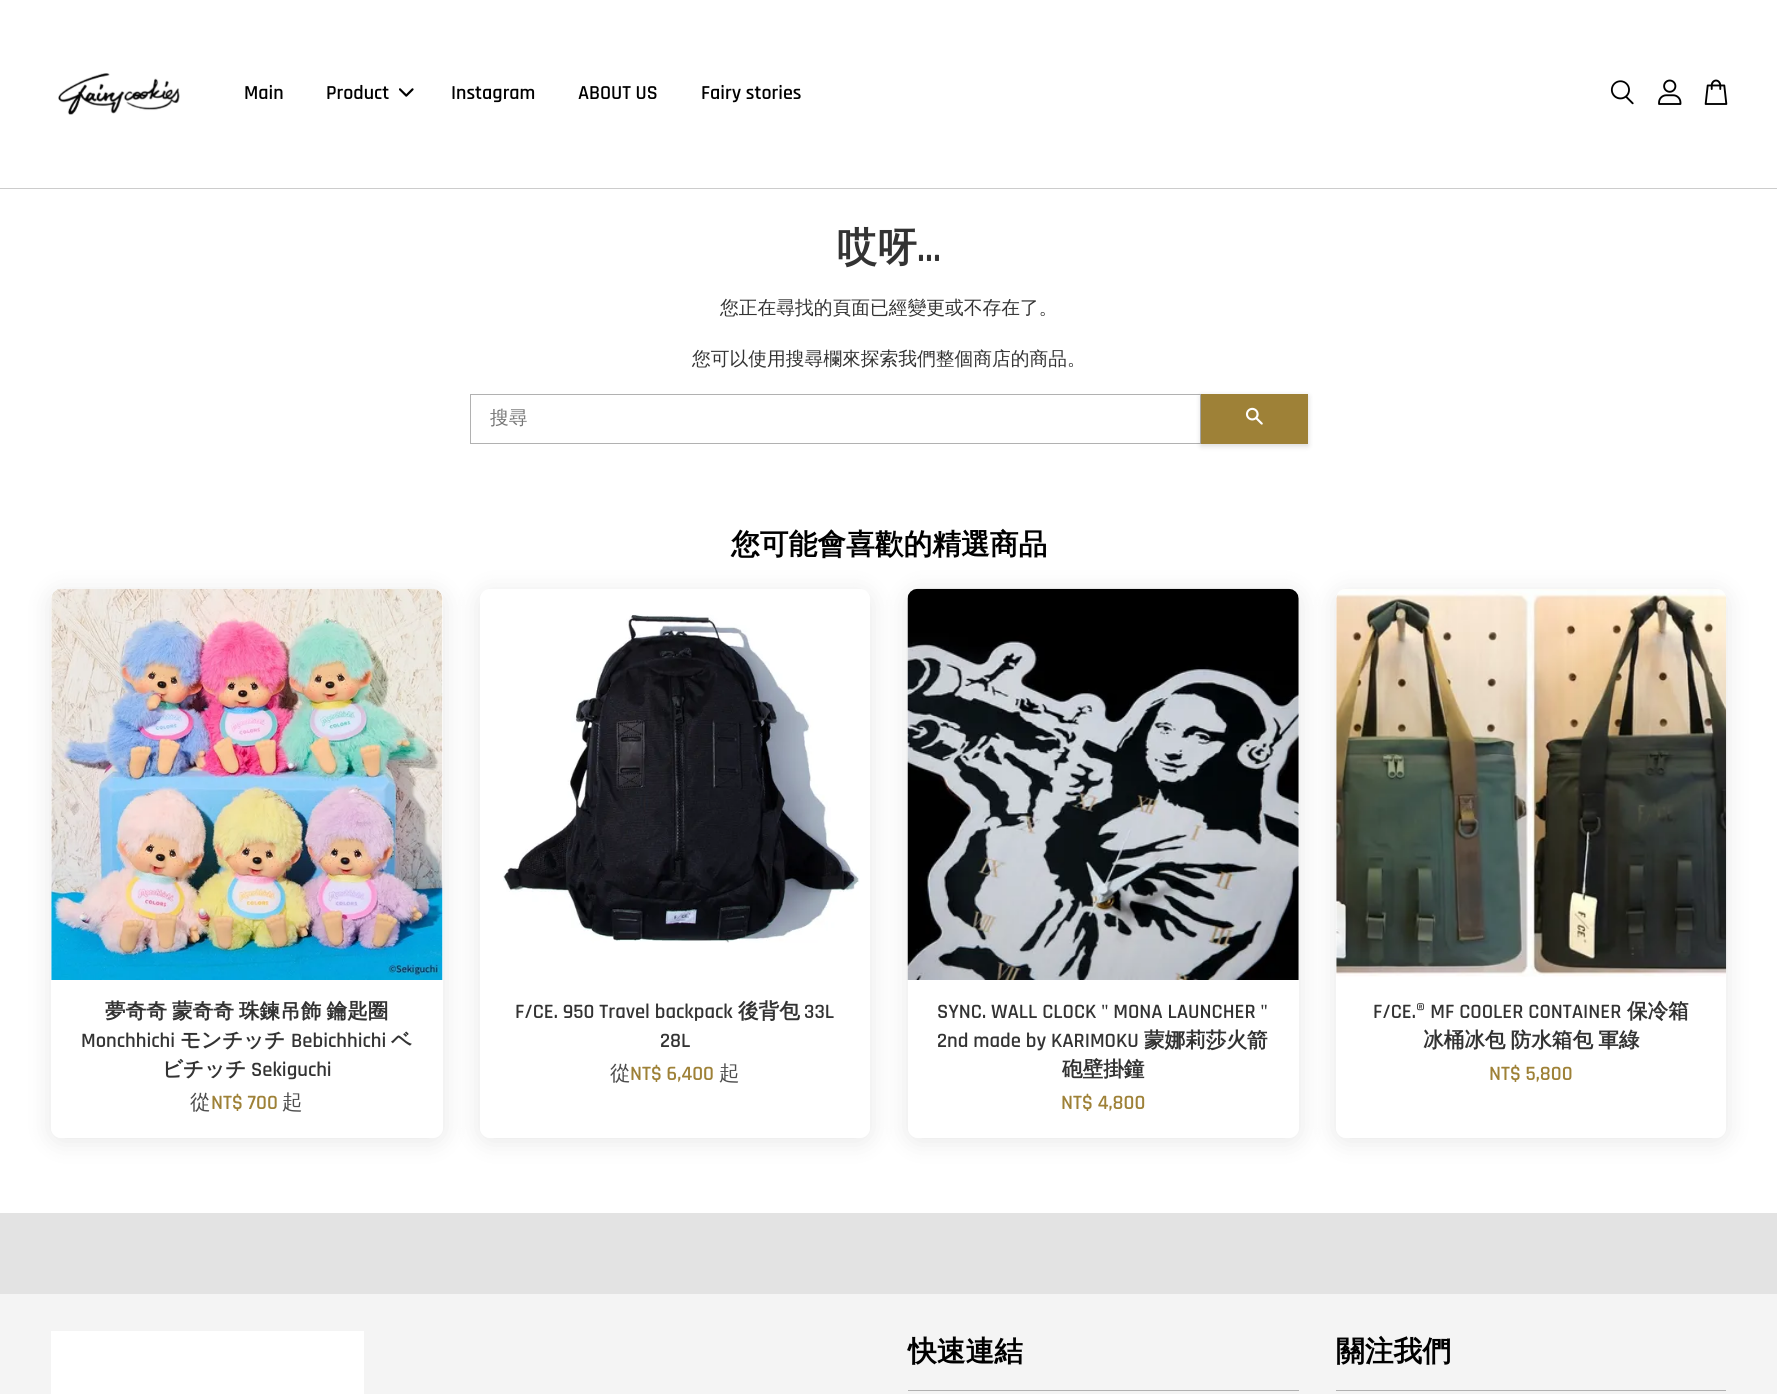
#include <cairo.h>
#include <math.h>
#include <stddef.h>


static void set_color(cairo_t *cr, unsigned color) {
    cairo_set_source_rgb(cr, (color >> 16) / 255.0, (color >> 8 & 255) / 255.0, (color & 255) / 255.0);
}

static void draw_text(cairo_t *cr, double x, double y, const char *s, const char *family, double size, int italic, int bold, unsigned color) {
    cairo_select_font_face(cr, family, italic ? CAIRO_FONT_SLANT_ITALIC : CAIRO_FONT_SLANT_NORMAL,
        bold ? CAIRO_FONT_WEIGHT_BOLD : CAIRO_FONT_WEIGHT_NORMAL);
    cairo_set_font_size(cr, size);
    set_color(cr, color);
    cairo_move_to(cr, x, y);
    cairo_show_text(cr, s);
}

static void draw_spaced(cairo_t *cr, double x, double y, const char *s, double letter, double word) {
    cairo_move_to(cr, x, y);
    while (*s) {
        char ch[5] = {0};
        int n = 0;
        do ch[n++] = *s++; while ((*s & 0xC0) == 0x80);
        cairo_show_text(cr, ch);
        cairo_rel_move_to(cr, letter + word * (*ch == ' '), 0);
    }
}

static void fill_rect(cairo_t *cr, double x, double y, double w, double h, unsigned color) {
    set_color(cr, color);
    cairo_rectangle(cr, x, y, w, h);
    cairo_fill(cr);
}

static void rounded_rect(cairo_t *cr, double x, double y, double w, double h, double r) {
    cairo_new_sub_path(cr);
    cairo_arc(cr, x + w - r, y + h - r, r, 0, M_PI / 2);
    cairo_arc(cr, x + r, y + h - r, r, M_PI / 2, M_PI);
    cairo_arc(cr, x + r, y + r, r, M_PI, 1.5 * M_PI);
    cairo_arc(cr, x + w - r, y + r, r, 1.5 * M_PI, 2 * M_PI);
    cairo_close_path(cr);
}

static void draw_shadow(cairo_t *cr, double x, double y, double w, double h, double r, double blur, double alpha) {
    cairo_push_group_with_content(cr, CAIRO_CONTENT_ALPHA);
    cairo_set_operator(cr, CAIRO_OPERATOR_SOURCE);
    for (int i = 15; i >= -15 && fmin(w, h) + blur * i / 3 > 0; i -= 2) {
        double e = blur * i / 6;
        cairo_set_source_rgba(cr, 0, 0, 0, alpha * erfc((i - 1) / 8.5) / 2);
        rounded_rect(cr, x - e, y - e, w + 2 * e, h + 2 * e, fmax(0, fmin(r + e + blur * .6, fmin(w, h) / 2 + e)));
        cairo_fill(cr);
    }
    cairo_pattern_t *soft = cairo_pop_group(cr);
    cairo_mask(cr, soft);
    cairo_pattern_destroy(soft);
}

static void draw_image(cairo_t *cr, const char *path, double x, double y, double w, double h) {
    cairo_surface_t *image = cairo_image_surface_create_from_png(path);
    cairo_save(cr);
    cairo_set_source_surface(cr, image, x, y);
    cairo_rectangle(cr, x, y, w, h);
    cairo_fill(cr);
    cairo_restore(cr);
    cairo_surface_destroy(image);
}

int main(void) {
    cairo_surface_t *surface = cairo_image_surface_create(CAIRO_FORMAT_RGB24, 1777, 1394);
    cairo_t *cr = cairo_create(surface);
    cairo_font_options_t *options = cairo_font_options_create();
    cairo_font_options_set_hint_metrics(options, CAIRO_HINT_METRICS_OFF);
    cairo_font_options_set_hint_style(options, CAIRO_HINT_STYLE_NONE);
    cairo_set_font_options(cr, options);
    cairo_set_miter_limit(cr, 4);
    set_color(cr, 0xFFFFFF);
    cairo_paint(cr);
    fill_rect(cr, 0, 188, 1777, 1, 0xCCCCCC);
    draw_image(cr, "assets/img1.png", 58, 73, 122, 42);
    draw_text(cr, 244, 99, "Main", "Rajdhani SemiBold", 20, 0, 0, 0x000000);
    draw_text(cr, 326, 99, "Product", "Rajdhani SemiBold", 20, 0, 0, 0x000000);
    draw_image(cr, "assets/img2.png", 399, 88, 15, 9);
    draw_text(cr, 451, 99, "Instagram", "Rajdhani SemiBold", 20, 0, 0, 0x000000);
    draw_text(cr, 578, 99, "ABOUT US", "Rajdhani SemiBold", 20, 0, 0, 0x000000);
    draw_text(cr, 701, 99, "Fairy stories", "Rajdhani SemiBold", 20, 0, 0, 0x000000);
    draw_image(cr, "assets/img3.png", 1610, 80, 24, 25);
    draw_image(cr, "assets/img4.png", 1658, 79, 24, 26);
    draw_image(cr, "assets/img5.png", 1704, 79, 24, 26);
    draw_text(cr, 837, 261, "哎呀", "WenQuanYi Zen Hei", 40, 0, 1, 0x333333);
    draw_text(cr, 917, 261, "...", "Rajdhani SemiBold", 40, 0, 0, 0x333333);
    draw_text(cr, 720, 314, "您正在尋找的頁面已經變更或不存在了。", "WenQuanYi Zen Hei Medium", 18.75, 0, 0, 0x333333);
    draw_text(cr, 692, 365, "您可以使用搜尋欄來探索我們整個商店的商品。", "WenQuanYi Zen Hei Medium", 18.75, 0, 0, 0x333333);
    cairo_rectangle(cr, 470.5, 394.5, 730, 49);
    set_color(cr, 0xB1B1B1);
    cairo_set_line_width(cr, 1);
    cairo_stroke(cr);
    draw_text(cr, 490, 424, "搜尋", "WenQuanYi Zen Hei Medium", 18.75, 0, 0, 0x757575);
    set_color(cr, 0x000000);
    draw_shadow(cr, 1201, 396, 107, 50, 0, 3, 0.15);
    fill_rect(cr, 1201, 394, 107, 50, 0x9E8137);
    draw_image(cr, "assets/img6.png", 1245, 407, 18, 18);
    draw_text(cr, 731, 554, "您可能會喜歡的精選商品", "WenQuanYi Zen Hei", 28.75, 0, 1, 0x000000);
    cairo_save(cr);
    cairo_set_fill_rule(cr, CAIRO_FILL_RULE_EVEN_ODD);
    cairo_new_path(cr);
    cairo_move_to(cr, 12, 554);
    cairo_line_to(cr, 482, 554);
    cairo_line_to(cr, 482, 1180);
    cairo_line_to(cr, 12, 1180);
    cairo_close_path(cr);
    cairo_move_to(cr, 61, 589);
    cairo_line_to(cr, 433, 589);
    cairo_curve_to(cr, 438.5, 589, 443, 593.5, 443, 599);
    cairo_line_to(cr, 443, 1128);
    cairo_curve_to(cr, 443, 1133.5, 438.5, 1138, 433, 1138);
    cairo_line_to(cr, 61, 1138);
    cairo_curve_to(cr, 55.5, 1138, 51, 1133.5, 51, 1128);
    cairo_line_to(cr, 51, 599);
    cairo_curve_to(cr, 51, 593.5, 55.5, 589, 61, 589);
    cairo_close_path(cr);
    cairo_clip(cr);
    set_color(cr, 0x000000);
    draw_shadow(cr, 51, 593, 392, 548, 10, 12.5, 0.1);
    cairo_restore(cr);
    draw_image(cr, "assets/img7.png", 51, 588, 392, 392);
    cairo_set_font_size(cr, 20.6);
    set_color(cr, 0x333333);
    draw_spaced(cr, 105, 1018, "夢奇奇 蒙奇奇 珠鍊吊飾 鑰匙圈", 0, -1);
    draw_text(cr, 81, 1047, "Monchhichi", "Rajdhani SemiBold", 20.6, 0, 0, 0x333333);
    draw_text(cr, 180, 1047, "モンチッチ", "WenQuanYi Zen Hei", 20.6, 0, 1, 0x333333);
    draw_text(cr, 291, 1047, "Bebichhichi", "Rajdhani SemiBold", 20.6, 0, 0, 0x333333);
    draw_text(cr, 391, 1047, "ベ", "WenQuanYi Zen Hei", 20.6, 0, 1, 0x333333);
    draw_text(cr, 162, 1076, "ビチッチ", "WenQuanYi Zen Hei", 20.6, 0, 1, 0x333333);
    draw_text(cr, 251, 1076, "Sekiguchi", "Rajdhani SemiBold", 20.6, 0, 0, 0x333333);
    draw_text(cr, 190, 1109, "從", "WenQuanYi Zen Hei Medium", 20.6, 0, 0, 0x4D4D4D);
    draw_text(cr, 211, 1109, "NT$ 700", "Rajdhani SemiBold", 20.6, 0, 0, 0x9E8137);
    draw_text(cr, 282, 1109, "起", "WenQuanYi Zen Hei Medium", 20.6, 0, 0, 0x4D4D4D);
    cairo_save(cr);
    cairo_set_fill_rule(cr, CAIRO_FILL_RULE_EVEN_ODD);
    cairo_new_path(cr);
    cairo_move_to(cr, 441, 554);
    cairo_line_to(cr, 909, 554);
    cairo_line_to(cr, 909, 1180);
    cairo_line_to(cr, 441, 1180);
    cairo_close_path(cr);
    cairo_move_to(cr, 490, 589);
    cairo_line_to(cr, 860, 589);
    cairo_curve_to(cr, 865.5, 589, 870, 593.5, 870, 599);
    cairo_line_to(cr, 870, 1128);
    cairo_curve_to(cr, 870, 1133.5, 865.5, 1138, 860, 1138);
    cairo_line_to(cr, 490, 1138);
    cairo_curve_to(cr, 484.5, 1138, 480, 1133.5, 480, 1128);
    cairo_line_to(cr, 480, 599);
    cairo_curve_to(cr, 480, 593.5, 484.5, 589, 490, 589);
    cairo_close_path(cr);
    cairo_clip(cr);
    set_color(cr, 0x000000);
    draw_shadow(cr, 480, 593, 390, 548, 10, 12.5, 0.1);
    cairo_restore(cr);
    draw_image(cr, "assets/img8.png", 503, 614, 357, 329);
    draw_text(cr, 515, 1018, "F/CE. 950 Travel backpack", "Rajdhani SemiBold", 20.6, 0, 0, 0x333333);
    draw_text(cr, 738, 1018, "後背包", "WenQuanYi Zen Hei", 20.6, 0, 1, 0x333333);
    draw_text(cr, 804, 1018, "33L", "Rajdhani SemiBold", 20.6, 0, 0, 0x333333);
    draw_text(cr, 660, 1047, "28L", "Rajdhani SemiBold", 20.6, 0, 0, 0x333333);
    draw_text(cr, 610, 1080, "從", "WenQuanYi Zen Hei Medium", 20.6, 0, 0, 0x4D4D4D);
    draw_text(cr, 630, 1080, "NT$ 6,400", "Rajdhani SemiBold", 20.6, 0, 0, 0x9E8137);
    draw_text(cr, 719, 1080, "起", "WenQuanYi Zen Hei Medium", 20.6, 0, 0, 0x4D4D4D);
    cairo_save(cr);
    cairo_set_fill_rule(cr, CAIRO_FILL_RULE_EVEN_ODD);
    cairo_new_path(cr);
    cairo_move_to(cr, 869, 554);
    cairo_line_to(cr, 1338, 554);
    cairo_line_to(cr, 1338, 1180);
    cairo_line_to(cr, 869, 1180);
    cairo_close_path(cr);
    cairo_move_to(cr, 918, 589);
    cairo_line_to(cr, 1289, 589);
    cairo_curve_to(cr, 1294.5, 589, 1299, 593.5, 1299, 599);
    cairo_line_to(cr, 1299, 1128);
    cairo_curve_to(cr, 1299, 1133.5, 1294.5, 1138, 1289, 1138);
    cairo_line_to(cr, 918, 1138);
    cairo_curve_to(cr, 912.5, 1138, 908, 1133.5, 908, 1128);
    cairo_line_to(cr, 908, 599);
    cairo_curve_to(cr, 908, 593.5, 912.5, 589, 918, 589);
    cairo_close_path(cr);
    cairo_clip(cr);
    set_color(cr, 0x000000);
    draw_shadow(cr, 908, 593, 391, 548, 10, 12.5, 0.1);
    cairo_restore(cr);
    draw_image(cr, "assets/img9.png", 907, 588, 392, 392);
    draw_text(cr, 937, 1018, "SYNC. WALL CLOCK \" MONA LAUNCHER \"", "Rajdhani SemiBold", 20.6, 0, 0, 0x333333);
    draw_text(cr, 937, 1047, "2nd made by KARIMOKU", "Rajdhani SemiBold", 20.6, 0, 0, 0x333333);
    draw_text(cr, 1144, 1047, "蒙娜莉莎火箭", "WenQuanYi Zen Hei", 20.6, 0, 1, 0x333333);
    draw_text(cr, 1062, 1076, "砲壁掛鐘", "WenQuanYi Zen Hei", 20.6, 0, 1, 0x333333);
    draw_text(cr, 1061, 1109, "NT$ 4,800", "Rajdhani SemiBold", 20.6, 0, 0, 0x9E8137);
    cairo_save(cr);
    cairo_set_fill_rule(cr, CAIRO_FILL_RULE_EVEN_ODD);
    cairo_new_path(cr);
    cairo_move_to(cr, 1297, 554);
    cairo_line_to(cr, 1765, 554);
    cairo_line_to(cr, 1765, 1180);
    cairo_line_to(cr, 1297, 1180);
    cairo_close_path(cr);
    cairo_move_to(cr, 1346, 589);
    cairo_line_to(cr, 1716, 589);
    cairo_curve_to(cr, 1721.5, 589, 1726, 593.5, 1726, 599);
    cairo_line_to(cr, 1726, 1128);
    cairo_curve_to(cr, 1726, 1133.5, 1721.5, 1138, 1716, 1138);
    cairo_line_to(cr, 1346, 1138);
    cairo_curve_to(cr, 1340.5, 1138, 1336, 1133.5, 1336, 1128);
    cairo_line_to(cr, 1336, 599);
    cairo_curve_to(cr, 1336, 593.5, 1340.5, 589, 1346, 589);
    cairo_close_path(cr);
    cairo_clip(cr);
    set_color(cr, 0x000000);
    draw_shadow(cr, 1336, 593, 390, 548, 10, 12.5, 0.1);
    cairo_restore(cr);
    draw_image(cr, "assets/img10.png", 1336, 589, 391, 388);
    draw_text(cr, 1373, 1018, "F/CE.® MF COOLER CONTAINER", "Rajdhani SemiBold", 20.6, 0, 0, 0x333333);
    draw_text(cr, 1627, 1018, "保冷箱", "WenQuanYi Zen Hei", 20.6, 0, 1, 0x333333);
    draw_spaced(cr, 1423, 1047, "冰桶冰包 防水箱包 軍綠", 0, -1);
    draw_text(cr, 1489, 1080, "NT$ 5,800", "Rajdhani SemiBold", 20.6, 0, 0, 0x9E8137);
    fill_rect(cr, 0, 1294, 1777, 100, 0xF4F4F4);
    fill_rect(cr, 0, 1213, 1777, 81, 0xE3E3E3);
    fill_rect(cr, 51, 1331, 313, 63, 0xFFFFFF);
    fill_rect(cr, 908, 1390, 391, 1, 0xB1B1B1);
    draw_text(cr, 908, 1361, "快速連結", "WenQuanYi Zen Hei", 28.75, 0, 1, 0x000000);
    fill_rect(cr, 1336, 1390, 390, 1, 0xB1B1B1);
    draw_text(cr, 1336, 1361, "關注我們", "WenQuanYi Zen Hei", 28.75, 0, 1, 0x000000);
    cairo_surface_write_to_png(surface, "output.png");
    cairo_font_options_destroy(options);
    cairo_destroy(cr);
    cairo_surface_destroy(surface);
    return 0;
}
